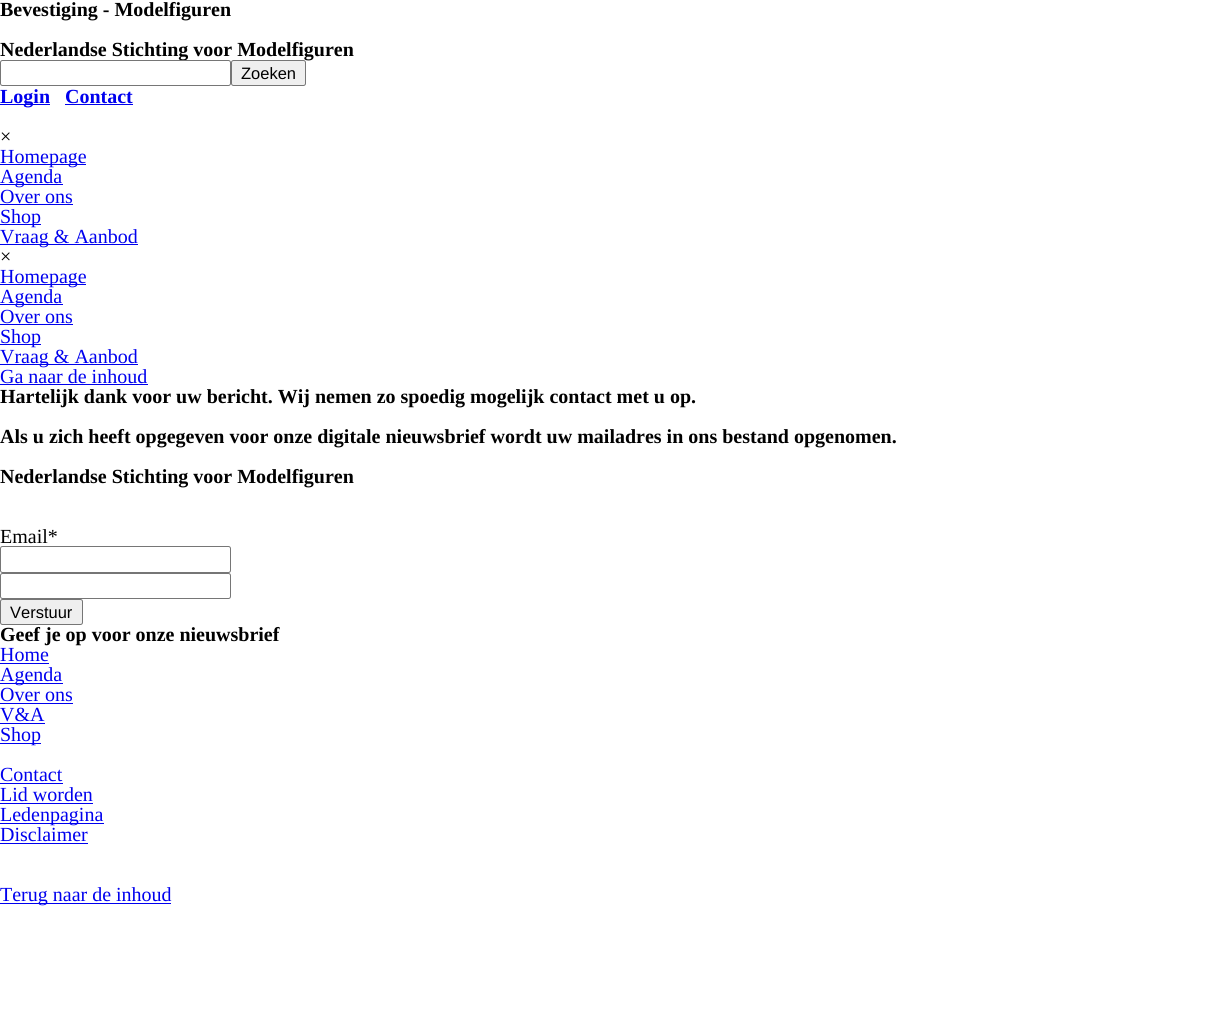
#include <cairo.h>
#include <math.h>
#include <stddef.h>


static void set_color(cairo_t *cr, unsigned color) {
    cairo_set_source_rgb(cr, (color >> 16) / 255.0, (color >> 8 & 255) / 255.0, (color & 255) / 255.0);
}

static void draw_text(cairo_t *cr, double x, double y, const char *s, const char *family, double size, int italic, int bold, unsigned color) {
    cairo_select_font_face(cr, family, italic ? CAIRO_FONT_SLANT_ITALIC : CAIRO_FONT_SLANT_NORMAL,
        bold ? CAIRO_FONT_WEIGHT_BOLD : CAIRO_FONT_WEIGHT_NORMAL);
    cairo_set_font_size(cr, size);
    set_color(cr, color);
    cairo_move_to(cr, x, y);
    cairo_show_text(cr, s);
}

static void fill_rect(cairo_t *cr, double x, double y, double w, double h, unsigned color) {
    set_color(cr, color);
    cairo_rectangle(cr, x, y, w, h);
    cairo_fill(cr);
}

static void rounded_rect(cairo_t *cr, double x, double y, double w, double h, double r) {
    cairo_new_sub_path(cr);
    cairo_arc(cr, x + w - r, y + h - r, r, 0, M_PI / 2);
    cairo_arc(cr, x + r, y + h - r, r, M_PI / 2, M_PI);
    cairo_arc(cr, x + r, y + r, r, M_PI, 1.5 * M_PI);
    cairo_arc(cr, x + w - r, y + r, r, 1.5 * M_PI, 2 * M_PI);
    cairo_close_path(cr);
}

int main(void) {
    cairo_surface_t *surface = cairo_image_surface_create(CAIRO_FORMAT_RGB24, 1232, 1025);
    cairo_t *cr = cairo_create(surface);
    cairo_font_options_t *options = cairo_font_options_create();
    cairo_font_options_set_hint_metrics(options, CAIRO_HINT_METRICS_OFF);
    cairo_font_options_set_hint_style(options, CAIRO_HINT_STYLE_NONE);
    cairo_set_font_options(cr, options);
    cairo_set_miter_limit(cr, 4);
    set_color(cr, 0xFFFFFF);
    cairo_paint(cr);
    draw_text(cr, 0, 16, "Bevestiging - Modelfiguren", "Liberation Serif", 20, 0, 1, 0x000000);
    draw_text(cr, 0, 56, "Nederlandse Stichting voor Modelfiguren", "Liberation Serif", 20, 0, 1, 0x000000);
    set_color(cr, 0xFFFFFF);
    rounded_rect(cr, 0.5, 60.5, 230, 25, 2);
    cairo_fill_preserve(cr);
    set_color(cr, 0x767676);
    cairo_set_line_width(cr, 1);
    cairo_stroke(cr);
    set_color(cr, 0xEFEFEF);
    rounded_rect(cr, 231.5, 60.5, 74, 25, 2);
    cairo_fill_preserve(cr);
    set_color(cr, 0x767676);
    cairo_stroke(cr);
    draw_text(cr, 241, 79, "Zoeken", "Liberation Sans", 16.5, 0, 0, 0x000000);
    fill_rect(cr, 0, 104, 50, 1, 0x0000EE);
    draw_text(cr, 0, 103, "Login", "Liberation Serif", 20, 0, 1, 0x0000EE);
    draw_text(cr, 65, 103, "Contact", "Liberation Serif", 20, 0, 1, 0x0000EE);
    fill_rect(cr, 65, 104, 68, 1, 0x0000EE);
    draw_text(cr, 0, 143, "×", "Liberation Serif", 20, 0, 0, 0x000000);
    fill_rect(cr, 0, 164, 86, 1, 0x0000EE);
    draw_text(cr, 0, 163, "Homepage", "Liberation Serif", 20, 0, 0, 0x0000EE);
    fill_rect(cr, 0, 184, 63, 1, 0x0000EE);
    draw_text(cr, 0, 183, "Agenda", "Liberation Serif", 20, 0, 0, 0x0000EE);
    draw_text(cr, 0, 203, "Over ons", "Liberation Serif", 20, 0, 0, 0x0000EE);
    fill_rect(cr, 0, 204, 73, 1, 0x0000EE);
    fill_rect(cr, 0, 224, 41, 1, 0x0000EE);
    draw_text(cr, 0, 223, "Shop", "Liberation Serif", 20, 0, 0, 0x0000EE);
    fill_rect(cr, 0, 244, 138, 1, 0x0000EE);
    draw_text(cr, 0, 243, "Vraag & Aanbod", "Liberation Serif", 20, 0, 0, 0x0000EE);
    draw_text(cr, 0, 263, "×", "Liberation Serif", 20, 0, 0, 0x000000);
    fill_rect(cr, 0, 284, 86, 1, 0x0000EE);
    draw_text(cr, 0, 283, "Homepage", "Liberation Serif", 20, 0, 0, 0x0000EE);
    fill_rect(cr, 0, 304, 63, 1, 0x0000EE);
    draw_text(cr, 0, 303, "Agenda", "Liberation Serif", 20, 0, 0, 0x0000EE);
    draw_text(cr, 0, 323, "Over ons", "Liberation Serif", 20, 0, 0, 0x0000EE);
    fill_rect(cr, 0, 324, 73, 1, 0x0000EE);
    fill_rect(cr, 0, 344, 41, 1, 0x0000EE);
    draw_text(cr, 0, 343, "Shop", "Liberation Serif", 20, 0, 0, 0x0000EE);
    fill_rect(cr, 0, 364, 138, 1, 0x0000EE);
    draw_text(cr, 0, 363, "Vraag & Aanbod", "Liberation Serif", 20, 0, 0, 0x0000EE);
    draw_text(cr, 0, 383, "Ga naar de inhoud", "Liberation Serif", 20, 0, 0, 0x0000EE);
    fill_rect(cr, 0, 384, 148, 1, 0x0000EE);
    draw_text(cr, 0, 403, "Hartelijk dank voor uw bericht. Wij nemen zo spoedig mogelijk contact met u op.", "Liberation Serif", 20, 0, 1, 0x000000);
    draw_text(cr, 0, 443, "Als u zich heeft opgegeven voor onze digitale nieuwsbrief wordt uw mailadres in ons bestand opgenomen.", "Liberation Serif", 20, 0, 1, 0x000000);
    draw_text(cr, 0, 483, "Nederlandse Stichting voor Modelfiguren", "Liberation Serif", 20, 0, 1, 0x000000);
    draw_text(cr, 0, 543, "Email*", "Liberation Serif", 20, 0, 0, 0x000000);
    rounded_rect(cr, 0.5, 546.5, 230, 26, 2);
    set_color(cr, 0x767676);
    cairo_stroke(cr);
    rounded_rect(cr, 0.5, 573.5, 230, 25, 2);
    cairo_stroke(cr);
    set_color(cr, 0xEFEFEF);
    rounded_rect(cr, 0.5, 599.5, 82, 25, 2);
    cairo_fill_preserve(cr);
    set_color(cr, 0x767676);
    cairo_stroke(cr);
    draw_text(cr, 10, 618, "Verstuur", "Liberation Sans", 16.5, 0, 0, 0x000000);
    draw_text(cr, 0, 641, "Geef je op voor onze nieuwsbrief", "Liberation Serif", 20, 0, 1, 0x000000);
    draw_text(cr, 0, 661, "Home", "Liberation Serif", 20, 0, 0, 0x0000EE);
    fill_rect(cr, 0, 663, 49, 1, 0x0000EE);
    fill_rect(cr, 0, 683, 63, 1, 0x0000EE);
    draw_text(cr, 0, 681, "Agenda", "Liberation Serif", 20, 0, 0, 0x0000EE);
    draw_text(cr, 0, 701, "Over ons", "Liberation Serif", 20, 0, 0, 0x0000EE);
    fill_rect(cr, 0, 703, 73, 1, 0x0000EE);
    draw_text(cr, 0, 721, "V&A", "Liberation Serif", 20, 0, 0, 0x0000EE);
    fill_rect(cr, 0, 723, 45, 1, 0x0000EE);
    fill_rect(cr, 0, 743, 41, 1, 0x0000EE);
    draw_text(cr, 0, 741, "Shop", "Liberation Serif", 20, 0, 0, 0x0000EE);
    draw_text(cr, 0, 781, "Contact", "Liberation Serif", 20, 0, 0, 0x0000EE);
    fill_rect(cr, 0, 783, 63, 1, 0x0000EE);
    draw_text(cr, 0, 801, "Lid worden", "Liberation Serif", 20, 0, 0, 0x0000EE);
    fill_rect(cr, 0, 803, 93, 1, 0x0000EE);
    fill_rect(cr, 0, 823, 104, 1, 0x0000EE);
    draw_text(cr, 0, 821, "Ledenpagina", "Liberation Serif", 20, 0, 0, 0x0000EE);
    draw_text(cr, 0, 841, "Disclaimer", "Liberation Serif", 20, 0, 0, 0x0000EE);
    fill_rect(cr, 0, 843, 88, 1, 0x0000EE);
    fill_rect(cr, 0, 903, 171, 1, 0x0000EE);
    draw_text(cr, 0, 901, "Terug naar de inhoud", "Liberation Serif", 20, 0, 0, 0x0000EE);
    cairo_surface_write_to_png(surface, "output.png");
    cairo_font_options_destroy(options);
    cairo_destroy(cr);
    cairo_surface_destroy(surface);
    return 0;
}
